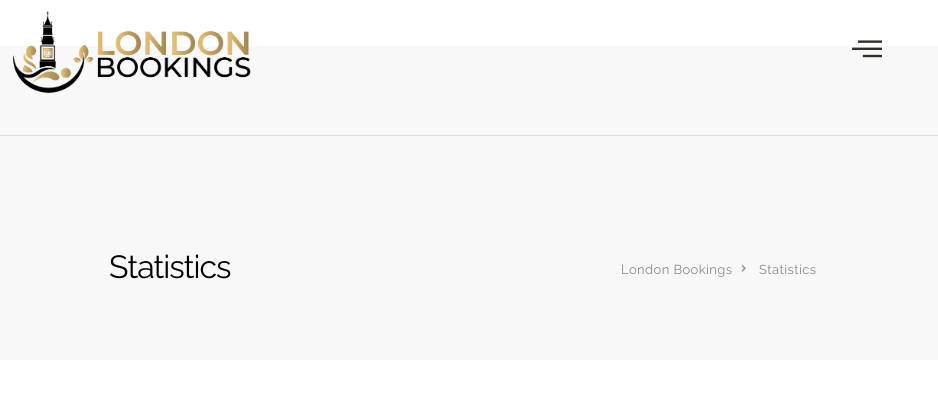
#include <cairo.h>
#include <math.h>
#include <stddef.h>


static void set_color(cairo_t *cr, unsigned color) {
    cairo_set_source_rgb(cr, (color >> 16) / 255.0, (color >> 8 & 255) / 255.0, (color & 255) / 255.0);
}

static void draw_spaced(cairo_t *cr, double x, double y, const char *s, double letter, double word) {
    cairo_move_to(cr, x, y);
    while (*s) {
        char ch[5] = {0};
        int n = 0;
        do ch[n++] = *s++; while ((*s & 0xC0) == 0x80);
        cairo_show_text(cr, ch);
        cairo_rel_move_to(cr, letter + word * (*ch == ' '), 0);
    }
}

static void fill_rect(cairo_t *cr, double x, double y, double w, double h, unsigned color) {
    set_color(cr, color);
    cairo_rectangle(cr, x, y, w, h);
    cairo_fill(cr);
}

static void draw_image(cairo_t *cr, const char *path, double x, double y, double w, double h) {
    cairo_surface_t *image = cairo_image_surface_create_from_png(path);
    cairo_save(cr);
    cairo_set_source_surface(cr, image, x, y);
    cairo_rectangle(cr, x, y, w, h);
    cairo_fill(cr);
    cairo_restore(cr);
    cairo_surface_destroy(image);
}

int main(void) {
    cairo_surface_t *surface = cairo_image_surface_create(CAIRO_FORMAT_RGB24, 938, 414);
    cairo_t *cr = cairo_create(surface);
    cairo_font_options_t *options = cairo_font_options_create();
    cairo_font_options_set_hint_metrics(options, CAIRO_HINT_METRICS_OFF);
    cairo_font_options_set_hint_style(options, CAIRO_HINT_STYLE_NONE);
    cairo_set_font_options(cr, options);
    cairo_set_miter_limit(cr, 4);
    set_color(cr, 0xFFFFFF);
    cairo_paint(cr);
    fill_rect(cr, 0, 46, 938, 314, 0xF8F8F8);
    fill_rect(cr, 0, 135, 938, 1, 0xE0E0E0);
    draw_image(cr, "assets/img1.png", 13, 11, 238, 82);
    draw_image(cr, "assets/img2.png", 852, 40, 30, 18);
    cairo_select_font_face(cr, "Raleway Thin", CAIRO_FONT_SLANT_NORMAL, CAIRO_FONT_WEIGHT_NORMAL);
    cairo_set_font_size(cr, 32);
    set_color(cr, 0x000000);
    draw_spaced(cr, 109, 278, "Statistics", -1, 0);
    cairo_set_font_size(cr, 13);
    set_color(cr, 0x888888);
    draw_spaced(cr, 621, 274, "London Bookings", 0.4, 0);
    draw_image(cr, "assets/img3.png", 741, 265, 5, 7);
    draw_spaced(cr, 759, 274, "Statistics", 0.4, 0);
    cairo_surface_write_to_png(surface, "output.png");
    cairo_font_options_destroy(options);
    cairo_destroy(cr);
    cairo_surface_destroy(surface);
    return 0;
}
